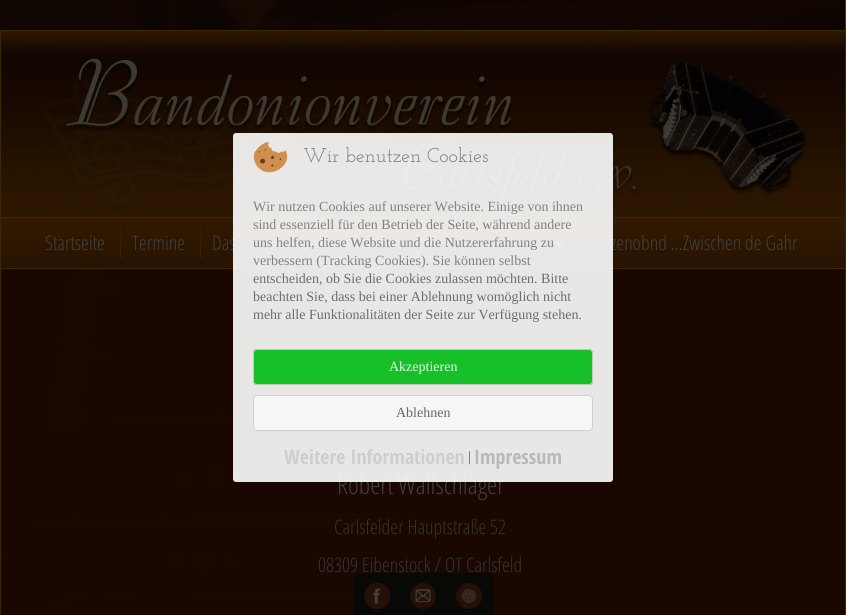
#include <cairo.h>
#include <math.h>
#include <stddef.h>


static void set_color(cairo_t *cr, unsigned color) {
    cairo_set_source_rgb(cr, (color >> 16) / 255.0, (color >> 8 & 255) / 255.0, (color & 255) / 255.0);
}

static void draw_text(cairo_t *cr, double x, double y, const char *s, const char *family, double size, int italic, int bold, unsigned color) {
    cairo_select_font_face(cr, family, italic ? CAIRO_FONT_SLANT_ITALIC : CAIRO_FONT_SLANT_NORMAL,
        bold ? CAIRO_FONT_WEIGHT_BOLD : CAIRO_FONT_WEIGHT_NORMAL);
    cairo_set_font_size(cr, size);
    set_color(cr, color);
    cairo_move_to(cr, x, y);
    cairo_show_text(cr, s);
}

static void fill_rect(cairo_t *cr, double x, double y, double w, double h, unsigned color) {
    set_color(cr, color);
    cairo_rectangle(cr, x, y, w, h);
    cairo_fill(cr);
}

static void rounded_rect(cairo_t *cr, double x, double y, double w, double h, double r) {
    cairo_new_sub_path(cr);
    cairo_arc(cr, x + w - r, y + h - r, r, 0, M_PI / 2);
    cairo_arc(cr, x + r, y + h - r, r, M_PI / 2, M_PI);
    cairo_arc(cr, x + r, y + r, r, M_PI, 1.5 * M_PI);
    cairo_arc(cr, x + w - r, y + r, r, 1.5 * M_PI, 2 * M_PI);
    cairo_close_path(cr);
}

static void draw_image(cairo_t *cr, const char *path, double x, double y, double w, double h) {
    cairo_surface_t *image = cairo_image_surface_create_from_png(path);
    cairo_save(cr);
    cairo_set_source_surface(cr, image, x, y);
    cairo_rectangle(cr, x, y, w, h);
    cairo_fill(cr);
    cairo_restore(cr);
    cairo_surface_destroy(image);
}

int main(void) {
    cairo_surface_t *surface = cairo_image_surface_create(CAIRO_FORMAT_RGB24, 846, 615);
    cairo_t *cr = cairo_create(surface);
    cairo_font_options_t *options = cairo_font_options_create();
    cairo_font_options_set_hint_metrics(options, CAIRO_HINT_METRICS_OFF);
    cairo_font_options_set_hint_style(options, CAIRO_HINT_STYLE_NONE);
    cairo_set_font_options(cr, options);
    cairo_set_miter_limit(cr, 4);
    cairo_pattern_t *gradient;
    set_color(cr, 0xFFFFFF);
    cairo_paint(cr);
    draw_image(cr, "assets/img1.png", 0, 0, 846, 615);
    rounded_rect(cr, 0.5, 30.5, 845, 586, 0.5);
    set_color(cr, 0x3D2700);
    cairo_set_line_width(cr, 1);
    cairo_stroke(cr);
    draw_image(cr, "assets/img3.png", 1, 31, 844, 186);
    gradient = cairo_pattern_create_linear(423, 218, 423, 268);
    cairo_pattern_add_color_stop_rgba(gradient, 0, 0.2, 0.102, 0, 1);
    cairo_pattern_add_color_stop_rgba(gradient, 1, 0.153, 0.075, 0, 1);
    cairo_set_source(cr, gradient);
    cairo_pattern_destroy(gradient);
    cairo_rectangle(cr, 1, 218, 844, 50);
    cairo_fill(cr);
    fill_rect(cr, 1, 217, 844, 1, 0x3D2700);
    fill_rect(cr, 1, 268, 844, 1, 0x3D2700);
    draw_image(cr, "assets/img4.png", 315, 240, 9, 7);
    draw_text(cr, 212, 250, "Das", "Open Sans Condensed Light", 20, 0, 0, 0x404040);
    fill_rect(cr, 335, 228, 1, 30, 0x352300);
    draw_image(cr, "assets/img4.png", 411, 240, 9, 7);
    fill_rect(cr, 431, 228, 1, 30, 0x352300);
    fill_rect(cr, 491, 228, 1, 30, 0x352300);
    draw_image(cr, "assets/img4.png", 556, 240, 9, 7);
    fill_rect(cr, 576, 228, 1, 30, 0x352300);
    draw_text(cr, 611, 250, "zenobnd ...Zwischen de Gahr", "Open Sans Condensed Light", 20, 0, 0, 0x404040);
    draw_text(cr, 337, 494, "Robert Wallschläger", "Open Sans Condensed Light", 26, 0, 0, 0x404040);
    cairo_set_source_rgba(cr, 1, 1, 1, 0.9);
    rounded_rect(cr, 233, 133, 380, 349, 3);
    cairo_fill(cr);
    draw_image(cr, "assets/img2.png", 253, 141, 35, 32);
    draw_text(cr, 303, 162, "Wir benutzen Cookies", "Josefin Slab", 20, 0, 0, 0x7C7C7C);
    draw_text(cr, 253, 211, "Wir nutzen Cookies auf unserer Website. Einige von ihnen", "Liberation Serif", 14, 0, 0, 0x828282);
    draw_text(cr, 253, 229, "sind essenziell für den Betrieb der Seite, während andere", "Liberation Serif", 14, 0, 0, 0x828282);
    draw_text(cr, 253, 247, "uns helfen, diese Website und die Nutzererfahrung zu", "Liberation Serif", 14, 0, 0, 0x828282);
    draw_text(cr, 253, 265, "verbessern (Tracking Cookies). Sie können selbst", "Liberation Serif", 14, 0, 0, 0x828282);
    draw_text(cr, 253, 283, "entscheiden, ob Sie die Cookies zulassen möchten. Bitte", "Liberation Serif", 14, 0, 0, 0x6E6C6B);
    draw_text(cr, 253, 301, "beachten Sie, dass bei einer Ablehnung womöglich nicht", "Liberation Serif", 14, 0, 0, 0x6E6C6B);
    draw_text(cr, 253, 319, "mehr alle Funktionalitäten der Seite zur Verfügung stehen.", "Liberation Serif", 14, 0, 0, 0x6E6C6B);
    cairo_set_source_rgba(cr, 0, 0.737, 0.075, 0.9);
    rounded_rect(cr, 253, 349, 340, 36, 4);
    cairo_fill(cr);
    rounded_rect(cr, 253.5, 349.5, 339, 35, 3.5);
    cairo_set_source_rgba(cr, 0.8, 0.8, 0.8, 0.9);
    cairo_stroke(cr);
    draw_text(cr, 389, 371, "Akzeptieren", "Liberation Serif", 14, 0, 0, 0xE8F9EA);
    cairo_set_source_rgba(cr, 0.969, 0.969, 0.969, 0.9);
    rounded_rect(cr, 253, 395, 340, 36, 4);
    cairo_fill(cr);
    rounded_rect(cr, 253.5, 395.5, 339, 35, 3.5);
    cairo_set_source_rgba(cr, 0.8, 0.8, 0.8, 0.9);
    cairo_stroke(cr);
    draw_text(cr, 396, 417, "Ablehnen", "Liberation Serif", 14, 0, 0, 0x676665);
    draw_text(cr, 284, 464, "Weitere Informationen", "Open Sans Condensed", 20, 0, 1, 0xCECECE);
    draw_text(cr, 468, 461, "|", "Josefin Slab", 14, 0, 0, 0x333333);
    draw_text(cr, 474, 464, "Impressum", "Open Sans Condensed", 20, 0, 1, 0xB9B8B7);
    draw_text(cr, 45, 250, "Startseite", "Open Sans Condensed Light", 20, 0, 0, 0x404040);
    fill_rect(cr, 120, 228, 1, 30, 0x352300);
    draw_text(cr, 132, 250, "Termine", "Open Sans Condensed Light", 20, 0, 0, 0x404040);
    fill_rect(cr, 200, 228, 1, 30, 0x352300);
    draw_text(cr, 334, 534, "Carlsfelder Hauptstraße 52", "Open Sans Condensed Light", 20, 0, 0, 0x333333);
    draw_text(cr, 318, 572, "08309 Eibenstock / OT Carlsfeld", "Open Sans Condensed Light", 20, 0, 0, 0x333333);
    draw_image(cr, "assets/img5.png", 353, 573, 140, 42);
    draw_image(cr, "assets/img6.png", 364, 583, 26, 26);
    draw_image(cr, "assets/img7.png", 410, 583, 26, 26);
    draw_image(cr, "assets/img8.png", 456, 583, 26, 26);
    cairo_surface_write_to_png(surface, "output.png");
    cairo_font_options_destroy(options);
    cairo_destroy(cr);
    cairo_surface_destroy(surface);
    return 0;
}
